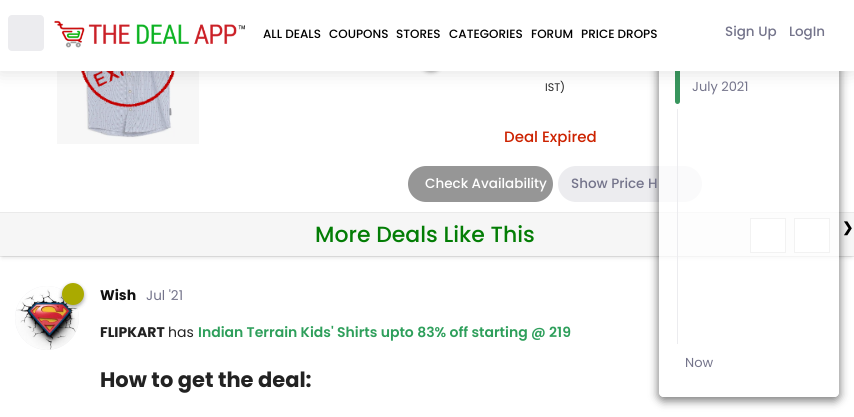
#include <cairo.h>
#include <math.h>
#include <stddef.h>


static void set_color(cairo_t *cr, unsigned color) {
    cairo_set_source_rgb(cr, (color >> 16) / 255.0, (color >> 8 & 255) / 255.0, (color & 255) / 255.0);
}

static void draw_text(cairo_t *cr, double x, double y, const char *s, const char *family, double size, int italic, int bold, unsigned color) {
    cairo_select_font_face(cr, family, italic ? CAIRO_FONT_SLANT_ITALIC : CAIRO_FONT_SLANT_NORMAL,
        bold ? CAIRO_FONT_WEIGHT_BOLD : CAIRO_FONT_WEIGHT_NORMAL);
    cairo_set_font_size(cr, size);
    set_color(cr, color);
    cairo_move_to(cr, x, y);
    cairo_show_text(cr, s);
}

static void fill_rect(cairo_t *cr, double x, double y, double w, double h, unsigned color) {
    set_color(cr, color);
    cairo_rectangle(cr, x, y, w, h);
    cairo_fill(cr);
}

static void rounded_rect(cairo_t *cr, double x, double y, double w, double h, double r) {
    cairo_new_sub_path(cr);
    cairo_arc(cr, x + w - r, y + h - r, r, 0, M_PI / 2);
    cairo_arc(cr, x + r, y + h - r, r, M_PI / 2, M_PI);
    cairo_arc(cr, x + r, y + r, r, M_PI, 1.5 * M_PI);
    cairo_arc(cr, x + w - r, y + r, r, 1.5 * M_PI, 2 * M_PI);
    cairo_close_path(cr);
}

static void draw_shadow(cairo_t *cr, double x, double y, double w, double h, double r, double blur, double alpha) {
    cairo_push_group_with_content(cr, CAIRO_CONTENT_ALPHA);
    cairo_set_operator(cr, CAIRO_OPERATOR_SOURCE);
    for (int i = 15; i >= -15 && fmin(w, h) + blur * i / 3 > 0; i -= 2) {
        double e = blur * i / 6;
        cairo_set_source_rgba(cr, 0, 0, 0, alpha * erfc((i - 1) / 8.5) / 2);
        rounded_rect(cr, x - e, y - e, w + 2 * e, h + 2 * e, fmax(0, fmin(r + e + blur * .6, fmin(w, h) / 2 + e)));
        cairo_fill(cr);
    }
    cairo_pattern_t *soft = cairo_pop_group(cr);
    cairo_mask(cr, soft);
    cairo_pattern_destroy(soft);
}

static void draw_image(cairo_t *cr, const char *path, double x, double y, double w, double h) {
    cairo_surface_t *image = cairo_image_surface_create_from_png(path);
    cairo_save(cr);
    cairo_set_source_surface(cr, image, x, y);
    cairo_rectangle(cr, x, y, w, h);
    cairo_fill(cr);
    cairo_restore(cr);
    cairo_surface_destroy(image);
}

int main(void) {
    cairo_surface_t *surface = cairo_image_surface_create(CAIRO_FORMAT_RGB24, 854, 417);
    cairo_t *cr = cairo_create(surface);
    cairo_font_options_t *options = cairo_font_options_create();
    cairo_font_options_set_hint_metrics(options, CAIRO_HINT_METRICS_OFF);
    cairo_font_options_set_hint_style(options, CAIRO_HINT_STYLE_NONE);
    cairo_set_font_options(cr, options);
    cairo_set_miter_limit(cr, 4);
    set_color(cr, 0xFFFFFF);
    cairo_paint(cr);
    draw_image(cr, "assets/img2.png", 57, 71, 142, 73);
    draw_image(cr, "assets/img3.png", 81, 71, 94, 37);
    fill_rect(cr, 0, 212, 854, 1, 0xEAEAEA);
    set_color(cr, 0xECECEF);
    rounded_rect(cr, 558, 166, 144, 36, 18);
    cairo_fill(cr);
    fill_rect(cr, 0, 256, 854, 1, 0xEAEAEA);
    set_color(cr, 0x000000);
    draw_shadow(cr, 2, 219, 850, 39, 0, 2, 0.1);
    fill_rect(cr, 0, 213, 854, 43, 0xF6F6F6);
    set_color(cr, 0xFFFFFF);
    cairo_rectangle(cr, 750.5, 218.5, 35, 34);
    cairo_fill_preserve(cr);
    set_color(cr, 0xCFCFCF);
    cairo_set_line_width(cr, 1);
    cairo_stroke(cr);
    set_color(cr, 0xFFFFFF);
    cairo_rectangle(cr, 794.5, 218.5, 35, 34);
    cairo_fill_preserve(cr);
    set_color(cr, 0xCFCFCF);
    cairo_stroke(cr);
    cairo_save(cr);
    cairo_set_fill_rule(cr, CAIRO_FILL_RULE_EVEN_ODD);
    cairo_new_path(cr);
    cairo_move_to(cr, 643, 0);
    cairo_line_to(cr, 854, 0);
    cairo_line_to(cr, 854, 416);
    cairo_line_to(cr, 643, 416);
    cairo_close_path(cr);
    cairo_move_to(cr, 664, -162);
    cairo_line_to(cr, 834, -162);
    cairo_curve_to(cr, 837, -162, 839, -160, 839, -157);
    cairo_line_to(cr, 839, 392);
    cairo_curve_to(cr, 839, 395, 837, 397, 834, 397);
    cairo_line_to(cr, 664, 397);
    cairo_curve_to(cr, 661, 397, 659, 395, 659, 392);
    cairo_line_to(cr, 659, -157);
    cairo_curve_to(cr, 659, -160, 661, -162, 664, -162);
    cairo_close_path(cr);
    cairo_clip(cr);
    set_color(cr, 0x000000);
    draw_shadow(cr, 658, -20, 182, 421, 6, 4.5, 0.5);
    cairo_restore(cr);
    cairo_set_source_rgba(cr, 1, 1, 1, 0.73);
    rounded_rect(cr, 659, -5, 180, 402, 5);
    cairo_fill(cr);
    set_color(cr, 0x38955D);
    rounded_rect(cr, 675, 50, 5, 54, 2.5);
    cairo_fill(cr);
    set_color(cr, 0x000000);
    draw_shadow(cr, 0, 1, 854, 71, 0, 10, 0.12);
    draw_shadow(cr, 420, 50, 22, 22, 11, 2, 0.35);
    fill_rect(cr, 0, 0, 854, 71, 0xFFFFFF);
    set_color(cr, 0xECECEF);
    rounded_rect(cr, 8, 15, 36, 36, 4);
    cairo_fill(cr);
    draw_image(cr, "assets/img1.png", 54, 20, 191, 28);
    draw_text(cr, 263, 38, "ALL DEALS", "Poppins Medium", 12, 0, 0, 0x000000);
    draw_text(cr, 329, 38, "COUPONS", "Poppins Medium", 12, 0, 0, 0x000000);
    draw_text(cr, 396, 38, "STORES", "Poppins Medium", 12, 0, 0, 0x000000);
    draw_text(cr, 449, 38, "CATEGORIES", "Poppins Medium", 12, 0, 0, 0x000000);
    draw_text(cr, 531, 38, "FORUM", "Poppins Medium", 12, 0, 0, 0x000000);
    draw_text(cr, 581, 38, "PRICE DROPS", "Poppins Medium", 12, 0, 0, 0x000000);
    draw_text(cr, 725, 36, "Sign Up", "Poppins Medium", 13.5, 0, 0, 0x74748B);
    draw_text(cr, 789, 36, "LogIn", "Poppins Medium", 13.5, 0, 0, 0x74748B);
    draw_text(cr, 545, 91, "IST)", "Poppins", 11, 0, 0, 0x222222);
    draw_text(cr, 504, 142, "Deal Expired", "Poppins Medium", 15, 0, 0, 0xCC2200);
    set_color(cr, 0x969696);
    rounded_rect(cr, 408, 166, 145, 36, 18);
    cairo_fill(cr);
    draw_text(cr, 425, 188, "Check Availability", "Poppins Medium", 13.5, 0, 0, 0xFFFFFF);
    draw_text(cr, 571, 188, "Show Price H", "Poppins Medium", 13.5, 0, 0, 0x74748B);
    draw_text(cr, 315, 242, "More Deals Like This", "Poppins Medium", 22, 0, 0, 0x037D05);
    draw_text(cr, 842, 232, "❯", "DejaVu Sans", 13.5, 0, 1, 0x000000);
    set_color(cr, 0xECECEF);
    cairo_new_path(cr);
    cairo_arc(cr, 47, 318, 32, 0, 2 * M_PI);
    cairo_fill(cr);
    draw_image(cr, "assets/img4.png", 15, 286, 64, 64);
    set_color(cr, 0x000000);
    draw_shadow(cr, 62, 285, 22, 22, 11, 2, 0.35);
    set_color(cr, 0xAAAA00);
    cairo_arc(cr, 73, 294, 11, 0, 2 * M_PI);
    cairo_fill(cr);
    draw_text(cr, 100, 300, "Wish", "Poppins", 14, 0, 1, 0x111111);
    draw_text(cr, 146, 300, "Jul '21", "Poppins", 13.5, 0, 0, 0x74748B);
    draw_text(cr, 100, 337, "FLIPKART", "Poppins", 14, 0, 1, 0x222222);
    draw_text(cr, 168, 337, "has", "Poppins", 14, 0, 0, 0x222222);
    draw_text(cr, 198, 337, "Indian Terrain Kids' Shirts upto 83% off starting @ 219", "Poppins SemiBold", 14, 0, 0, 0x2E9F5B);
    draw_text(cr, 100, 387, "How to get the deal:", "Poppins", 21, 0, 1, 0x222222);
    draw_text(cr, 692, 91, "July 2021", "Poppins", 13, 0, 0, 0x74748B);
    fill_rect(cr, 677, 109, 1, 235, 0xECECEF);
    draw_text(cr, 685, 367, "Now", "Poppins", 13, 0, 0, 0x74748B);
    cairo_surface_write_to_png(surface, "output.png");
    cairo_font_options_destroy(options);
    cairo_destroy(cr);
    cairo_surface_destroy(surface);
    return 0;
}
